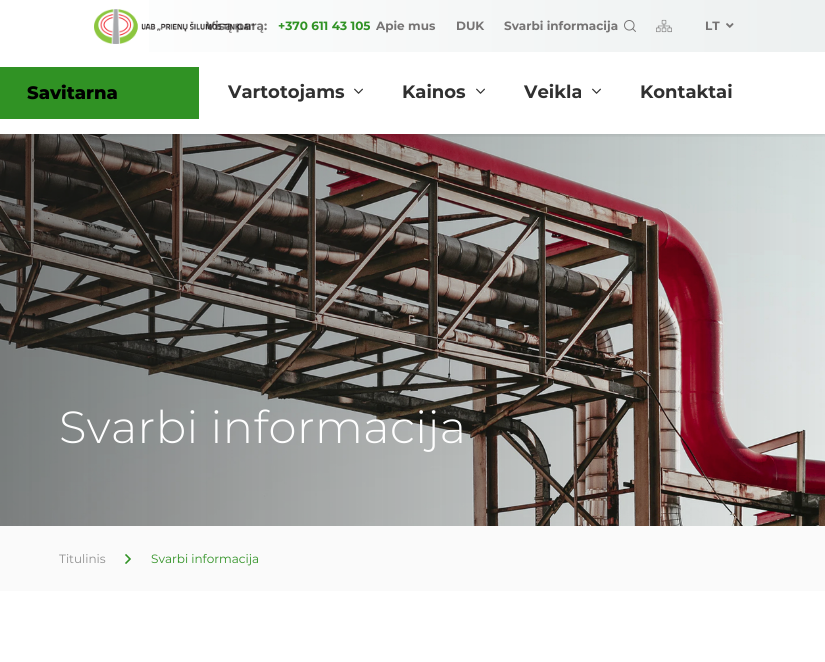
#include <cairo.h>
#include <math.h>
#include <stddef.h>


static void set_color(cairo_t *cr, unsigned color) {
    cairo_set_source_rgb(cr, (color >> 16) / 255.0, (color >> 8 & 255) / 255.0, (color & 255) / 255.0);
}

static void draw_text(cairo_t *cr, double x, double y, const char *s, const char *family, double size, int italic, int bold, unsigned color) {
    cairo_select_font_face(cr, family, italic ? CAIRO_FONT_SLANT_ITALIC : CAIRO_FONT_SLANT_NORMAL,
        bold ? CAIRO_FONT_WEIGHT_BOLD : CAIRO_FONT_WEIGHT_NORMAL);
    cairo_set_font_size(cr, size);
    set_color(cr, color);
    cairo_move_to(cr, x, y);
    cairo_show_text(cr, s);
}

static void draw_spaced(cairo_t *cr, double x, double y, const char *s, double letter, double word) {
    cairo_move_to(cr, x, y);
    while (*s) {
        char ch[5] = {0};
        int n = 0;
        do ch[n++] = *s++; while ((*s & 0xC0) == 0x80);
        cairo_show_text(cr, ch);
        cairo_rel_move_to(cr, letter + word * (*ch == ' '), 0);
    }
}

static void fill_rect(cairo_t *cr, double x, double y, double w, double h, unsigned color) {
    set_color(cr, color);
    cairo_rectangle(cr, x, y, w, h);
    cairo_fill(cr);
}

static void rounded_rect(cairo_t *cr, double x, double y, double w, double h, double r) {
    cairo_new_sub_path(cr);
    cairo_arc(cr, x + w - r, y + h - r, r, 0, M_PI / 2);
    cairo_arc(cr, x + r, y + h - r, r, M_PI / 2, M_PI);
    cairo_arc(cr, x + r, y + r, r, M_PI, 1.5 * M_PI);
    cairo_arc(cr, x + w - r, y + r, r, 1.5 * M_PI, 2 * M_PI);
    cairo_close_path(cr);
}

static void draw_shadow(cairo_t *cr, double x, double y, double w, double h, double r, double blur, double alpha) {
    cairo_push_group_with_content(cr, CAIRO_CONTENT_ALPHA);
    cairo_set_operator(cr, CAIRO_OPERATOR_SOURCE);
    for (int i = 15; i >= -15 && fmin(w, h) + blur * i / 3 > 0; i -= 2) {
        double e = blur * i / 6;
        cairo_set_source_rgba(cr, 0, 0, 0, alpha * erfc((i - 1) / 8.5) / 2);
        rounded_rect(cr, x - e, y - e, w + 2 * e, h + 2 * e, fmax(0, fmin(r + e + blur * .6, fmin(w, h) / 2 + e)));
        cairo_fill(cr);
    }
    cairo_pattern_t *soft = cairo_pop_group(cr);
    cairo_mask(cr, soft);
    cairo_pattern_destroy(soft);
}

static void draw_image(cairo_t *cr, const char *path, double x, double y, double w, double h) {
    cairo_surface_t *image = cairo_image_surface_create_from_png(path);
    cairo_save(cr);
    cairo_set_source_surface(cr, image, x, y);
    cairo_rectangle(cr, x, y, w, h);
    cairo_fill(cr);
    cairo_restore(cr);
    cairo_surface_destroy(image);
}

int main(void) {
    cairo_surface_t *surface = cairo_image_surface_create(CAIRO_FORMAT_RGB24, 825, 662);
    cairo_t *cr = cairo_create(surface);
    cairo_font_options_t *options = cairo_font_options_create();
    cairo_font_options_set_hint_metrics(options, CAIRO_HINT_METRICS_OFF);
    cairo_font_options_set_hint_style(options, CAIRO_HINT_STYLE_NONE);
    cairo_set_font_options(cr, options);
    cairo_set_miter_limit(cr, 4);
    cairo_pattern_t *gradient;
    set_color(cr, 0xFFFFFF);
    cairo_paint(cr);
    draw_image(cr, "assets/img6.png", 0, 134, 825, 392);
    cairo_save(cr);
    cairo_rectangle(cr, 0, 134, 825, 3);
    cairo_clip(cr);
    set_color(cr, 0x000000);
    draw_shadow(cr, 0, 0, 825, 134, 0, 2.5, 0.15);
    cairo_restore(cr);
    gradient = cairo_pattern_create_linear(-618, 26, 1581, 26);
    cairo_pattern_add_color_stop_rgba(gradient, 0, 1, 1, 1, 1);
    cairo_pattern_add_color_stop_rgba(gradient, 0.3, 1, 1, 1, 1);
    cairo_pattern_add_color_stop_rgba(gradient, 1, 0.859, 0.886, 0.886, 1);
    cairo_set_source(cr, gradient);
    cairo_pattern_destroy(gradient);
    cairo_rectangle(cr, 149, 0, 676, 52);
    cairo_fill(cr);
    draw_text(cr, 206, 30, "Visą parą:", "Montserrat", 12, 0, 1, 0x767474);
    draw_image(cr, "assets/img1.png", 94, 9, 160, 35);
    draw_text(cr, 278, 30, "+370 611 43 105", "Montserrat", 12, 0, 1, 0x309224);
    draw_text(cr, 376, 30, "Apie mus", "Montserrat", 12, 0, 1, 0x767474);
    draw_text(cr, 456, 30, "DUK", "Montserrat", 12, 0, 1, 0x767474);
    draw_text(cr, 504, 30, "Svarbi informacija", "Montserrat", 12, 0, 1, 0x767474);
    draw_image(cr, "assets/img2.png", 624, 20, 12, 12);
    draw_image(cr, "assets/img3.png", 656, 19, 16, 14);
    draw_text(cr, 705, 30, "LT", "Montserrat", 12, 0, 1, 0x767474);
    draw_image(cr, "assets/img4.png", 726, 23, 8, 5);
    fill_rect(cr, 0, 67, 199, 52, 0x309224);
    draw_text(cr, 27, 99, "Savitarna", "Montserrat ExtraBold", 18, 0, 0, 0x000000);
    draw_text(cr, 228, 98, "Vartotojams", "Montserrat", 18, 0, 1, 0x303030);
    draw_image(cr, "assets/img5.png", 354, 88, 9, 6);
    draw_text(cr, 402, 98, "Kainos", "Montserrat", 18, 0, 1, 0x303030);
    draw_image(cr, "assets/img5.png", 476, 88, 9, 6);
    draw_text(cr, 524, 98, "Veikla", "Montserrat", 18, 0, 1, 0x303030);
    draw_image(cr, "assets/img5.png", 592, 88, 9, 6);
    draw_text(cr, 640, 98, "Kontaktai", "Montserrat", 18, 0, 1, 0x303030);
    cairo_select_font_face(cr, "Montserrat Light", CAIRO_FONT_SLANT_NORMAL, CAIRO_FONT_WEIGHT_NORMAL);
    cairo_set_font_size(cr, 45);
    set_color(cr, 0xFEFEFE);
    draw_spaced(cr, 59, 443, "Svarbi informacija", 0.4, 0);
    fill_rect(cr, 0, 526, 825, 65, 0xFAFAFA);
    draw_text(cr, 59, 563, "Titulinis", "Montserrat", 12, 0, 0, 0x8F8F8F);
    draw_image(cr, "assets/img7.png", 125, 554, 6, 10);
    draw_text(cr, 151, 563, "Svarbi informacija", "Montserrat", 12, 0, 0, 0x309224);
    cairo_surface_write_to_png(surface, "output.png");
    cairo_font_options_destroy(options);
    cairo_destroy(cr);
    cairo_surface_destroy(surface);
    return 0;
}
